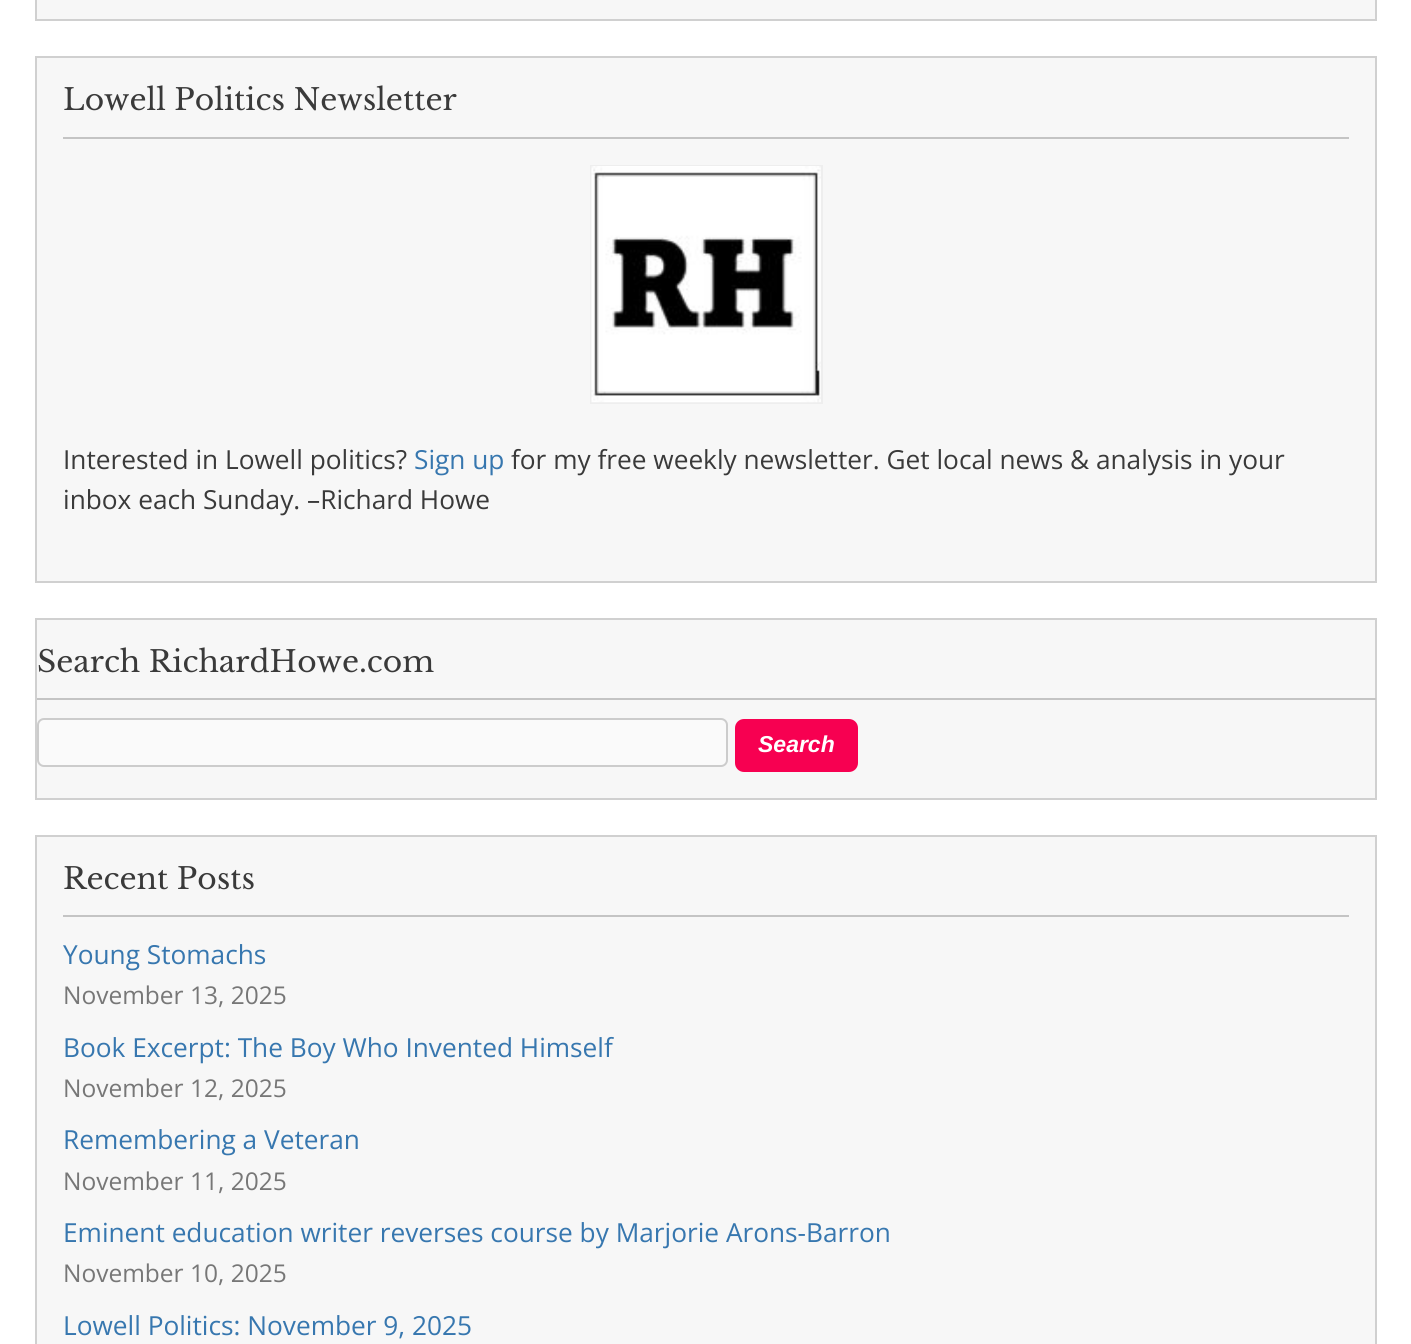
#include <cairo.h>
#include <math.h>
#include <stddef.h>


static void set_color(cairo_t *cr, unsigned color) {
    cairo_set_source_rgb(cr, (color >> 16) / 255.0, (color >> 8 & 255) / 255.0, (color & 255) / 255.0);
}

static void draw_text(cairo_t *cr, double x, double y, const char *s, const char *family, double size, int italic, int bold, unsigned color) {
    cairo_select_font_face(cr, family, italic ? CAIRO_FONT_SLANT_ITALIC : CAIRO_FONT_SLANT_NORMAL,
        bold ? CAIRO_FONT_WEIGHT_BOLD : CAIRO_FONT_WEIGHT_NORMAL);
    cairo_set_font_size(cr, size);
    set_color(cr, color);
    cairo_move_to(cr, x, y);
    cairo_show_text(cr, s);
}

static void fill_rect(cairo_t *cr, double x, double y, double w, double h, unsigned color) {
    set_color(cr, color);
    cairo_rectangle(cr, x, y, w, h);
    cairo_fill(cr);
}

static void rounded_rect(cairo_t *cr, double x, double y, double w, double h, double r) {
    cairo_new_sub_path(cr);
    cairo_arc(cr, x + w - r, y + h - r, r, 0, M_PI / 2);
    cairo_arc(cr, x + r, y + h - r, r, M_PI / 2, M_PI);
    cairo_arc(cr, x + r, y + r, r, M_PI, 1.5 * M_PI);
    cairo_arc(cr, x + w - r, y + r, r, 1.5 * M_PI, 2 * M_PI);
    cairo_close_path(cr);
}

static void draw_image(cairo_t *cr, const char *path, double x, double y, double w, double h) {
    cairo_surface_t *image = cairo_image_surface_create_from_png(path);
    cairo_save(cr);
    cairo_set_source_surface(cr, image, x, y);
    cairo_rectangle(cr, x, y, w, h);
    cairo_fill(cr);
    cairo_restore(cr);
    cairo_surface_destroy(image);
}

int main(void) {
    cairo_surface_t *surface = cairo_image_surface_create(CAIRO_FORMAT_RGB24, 1411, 1344);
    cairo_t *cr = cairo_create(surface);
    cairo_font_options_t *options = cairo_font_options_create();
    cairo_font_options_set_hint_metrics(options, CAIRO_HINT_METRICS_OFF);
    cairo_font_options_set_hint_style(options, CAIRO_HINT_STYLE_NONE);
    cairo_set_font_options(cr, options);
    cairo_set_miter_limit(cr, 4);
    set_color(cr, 0xFFFFFF);
    cairo_paint(cr);
    set_color(cr, 0xF7F7F7);
    cairo_rectangle(cr, 36, -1, 1340, 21);
    cairo_fill_preserve(cr);
    set_color(cr, 0xD0D0D0);
    cairo_stroke(cr);
    set_color(cr, 0xF7F7F7);
    cairo_rectangle(cr, 36, 57, 1340, 525);
    cairo_fill_preserve(cr);
    set_color(cr, 0xD0D0D0);
    cairo_stroke(cr);
    fill_rect(cr, 63, 137, 1286, 2, 0xC4C4C4);
    draw_text(cr, 63, 110, "Lowell Politics Newsletter", "Libre Baskerville", 29.75, 0, 0, 0x3A3A3A);
    cairo_rectangle(cr, 591, 166, 231, 237);
    set_color(cr, 0xEEEEEE);
    cairo_stroke(cr);
    draw_image(cr, "assets/img1.png", 591, 166, 230, 237);
    draw_text(cr, 63, 469, "Interested in Lowell politics?", "Open Sans", 26.25, 0, 0, 0x3A3A3A);
    draw_text(cr, 414, 469, "Sign up", "Open Sans", 26.25, 0, 0, 0x3777AF);
    draw_text(cr, 511, 469, "for my free weekly newsletter. Get local news & analysis in your", "Open Sans", 26.25, 0, 0, 0x3A3A3A);
    draw_text(cr, 63, 509, "inbox each Sunday. –Richard Howe", "Open Sans", 26.25, 0, 0, 0x3A3A3A);
    set_color(cr, 0xF7F7F7);
    cairo_rectangle(cr, 36, 619, 1340, 180);
    cairo_fill_preserve(cr);
    set_color(cr, 0xD0D0D0);
    cairo_stroke(cr);
    fill_rect(cr, 37, 698, 1339, 2, 0xC4C4C4);
    draw_text(cr, 37, 672, "Search RichardHowe.com", "Libre Baskerville", 29.75, 0, 0, 0x3A3A3A);
    set_color(cr, 0xFAFAFA);
    rounded_rect(cr, 38, 719, 689, 47, 6);
    cairo_fill_preserve(cr);
    set_color(cr, 0xCCCCCC);
    cairo_stroke(cr);
    set_color(cr, 0xF70051);
    rounded_rect(cr, 735, 719, 123, 53, 9);
    cairo_fill(cr);
    draw_text(cr, 758, 752, "Search", "Liberation Sans", 23, 1, 1, 0xFFFFFF);
    set_color(cr, 0xF7F7F7);
    cairo_rectangle(cr, 36, 836, 1340, 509);
    cairo_fill_preserve(cr);
    set_color(cr, 0xD0D0D0);
    cairo_stroke(cr);
    fill_rect(cr, 63, 915, 1286, 2, 0xC4C4C4);
    draw_text(cr, 63, 889, "Recent Posts", "Libre Baskerville", 29.75, 0, 0, 0x3A3A3A);
    draw_text(cr, 63, 964, "Young Stomachs", "Open Sans", 26.25, 0, 0, 0x3777AF);
    draw_text(cr, 63, 1004, "November 13, 2025", "Open Sans", 24.5, 0, 0, 0x777777);
    draw_text(cr, 63, 1057, "Book Excerpt: The Boy Who Invented Himself", "Open Sans", 26.25, 0, 0, 0x3777AF);
    draw_text(cr, 63, 1097, "November 12, 2025", "Open Sans", 24.5, 0, 0, 0x777777);
    draw_text(cr, 63, 1149, "Remembering a Veteran", "Open Sans", 26.25, 0, 0, 0x3777AF);
    draw_text(cr, 63, 1190, "November 11, 2025", "Open Sans", 24.5, 0, 0, 0x777777);
    draw_text(cr, 63, 1242, "Eminent education writer reverses course by Marjorie Arons-Barron", "Open Sans", 26.25, 0, 0, 0x3777AF);
    draw_text(cr, 63, 1282, "November 10, 2025", "Open Sans", 24.5, 0, 0, 0x777777);
    draw_text(cr, 63, 1335, "Lowell Politics: November 9, 2025", "Open Sans", 26.25, 0, 0, 0x3777AF);
    cairo_surface_write_to_png(surface, "output.png");
    cairo_font_options_destroy(options);
    cairo_destroy(cr);
    cairo_surface_destroy(surface);
    return 0;
}
